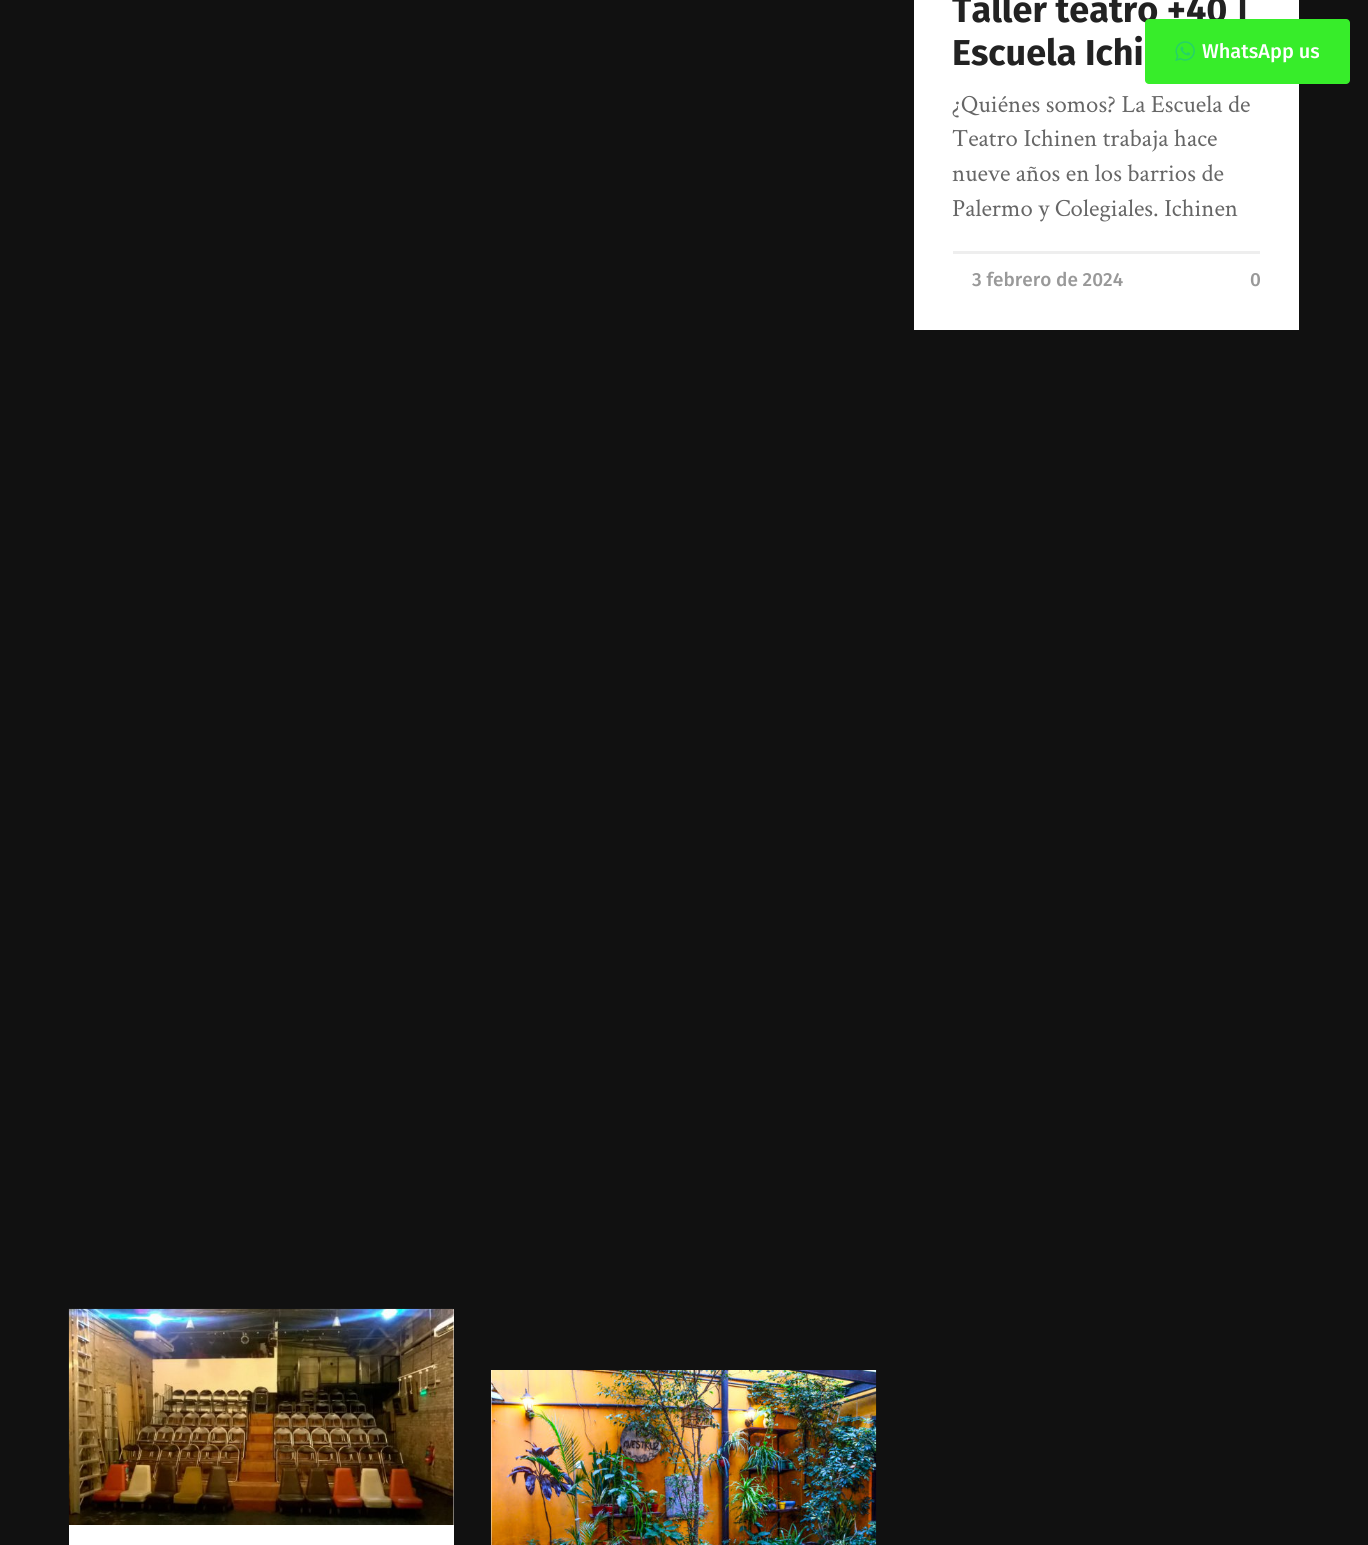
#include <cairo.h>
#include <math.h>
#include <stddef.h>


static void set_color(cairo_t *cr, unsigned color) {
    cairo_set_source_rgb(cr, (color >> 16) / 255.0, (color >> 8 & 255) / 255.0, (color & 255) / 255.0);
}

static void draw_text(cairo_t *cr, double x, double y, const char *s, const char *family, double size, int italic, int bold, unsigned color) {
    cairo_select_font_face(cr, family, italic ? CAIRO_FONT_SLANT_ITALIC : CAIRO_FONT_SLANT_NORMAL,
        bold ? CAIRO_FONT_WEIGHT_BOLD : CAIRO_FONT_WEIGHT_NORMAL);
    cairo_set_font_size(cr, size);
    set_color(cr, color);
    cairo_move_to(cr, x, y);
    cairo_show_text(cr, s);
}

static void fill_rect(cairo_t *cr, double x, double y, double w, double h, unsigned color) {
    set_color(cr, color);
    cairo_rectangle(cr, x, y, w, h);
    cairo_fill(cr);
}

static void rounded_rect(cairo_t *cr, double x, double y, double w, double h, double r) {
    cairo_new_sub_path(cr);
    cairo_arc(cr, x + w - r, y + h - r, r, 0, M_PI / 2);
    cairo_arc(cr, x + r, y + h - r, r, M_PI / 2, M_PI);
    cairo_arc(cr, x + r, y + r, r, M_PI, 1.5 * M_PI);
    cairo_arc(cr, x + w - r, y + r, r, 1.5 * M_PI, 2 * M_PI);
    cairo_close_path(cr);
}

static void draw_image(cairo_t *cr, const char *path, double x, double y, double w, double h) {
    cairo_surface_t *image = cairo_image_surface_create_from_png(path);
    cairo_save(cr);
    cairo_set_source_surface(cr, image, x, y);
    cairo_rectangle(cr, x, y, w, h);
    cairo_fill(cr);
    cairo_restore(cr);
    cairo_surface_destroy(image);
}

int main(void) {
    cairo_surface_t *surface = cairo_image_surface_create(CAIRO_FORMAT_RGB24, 1368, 1545);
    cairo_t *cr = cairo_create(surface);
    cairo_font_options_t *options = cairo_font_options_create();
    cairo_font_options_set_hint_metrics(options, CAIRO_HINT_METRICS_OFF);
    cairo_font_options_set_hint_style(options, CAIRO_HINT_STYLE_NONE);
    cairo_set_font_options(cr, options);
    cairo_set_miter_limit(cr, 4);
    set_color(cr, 0x111111);
    cairo_paint(cr);
    fill_rect(cr, 914, 0, 385, 330, 0xFFFFFF);
    draw_text(cr, 952, 22, "Taller teatro +40 |", "Fira Sans", 36, 0, 1, 0x222222);
    draw_text(cr, 952, 65, "Escuela Ichi", "Fira Sans", 36, 0, 1, 0x222222);
    draw_text(cr, 952, 112, "¿Quiénes somos? La Escuela de", "Crimson Text", 24.75, 0, 0, 0x666666);
    draw_text(cr, 952, 146, "Teatro Ichinen trabaja hace", "Crimson Text", 24.75, 0, 0, 0x666666);
    draw_text(cr, 952, 181, "nueve años en los barrios de", "Crimson Text", 24.75, 0, 0, 0x666666);
    draw_text(cr, 952, 216, "Palermo y Colegiales. Ichinen", "Crimson Text", 24.75, 0, 0, 0x666666);
    fill_rect(cr, 953, 251, 307, 3, 0xEEEEEE);
    draw_text(cr, 972, 286, "3 febrero de 2024", "Fira Sans Medium", 19, 0, 0, 0x999999);
    draw_text(cr, 1250, 286, "0", "Fira Sans Medium", 19, 0, 0, 0x999999);
    fill_rect(cr, 69, 1309, 385, 236, 0xFFFFFF);
    draw_image(cr, "assets/img1.png", 68, 1308, 386, 217);
    fill_rect(cr, 491, 1370, 1, 175, 0xFFFFFF);
    draw_image(cr, "assets/img2.png", 491, 1370, 386, 175);
    set_color(cr, 0x37ED2A);
    rounded_rect(cr, 1145, 19, 205, 65, 4);
    cairo_fill(cr);
    draw_image(cr, "assets/img3.png", 1175, 41, 20, 20);
    draw_text(cr, 1202, 58, "WhatsApp us", "Fira Sans Medium", 20, 0, 0, 0xFFFFFF);
    cairo_surface_write_to_png(surface, "output.png");
    cairo_font_options_destroy(options);
    cairo_destroy(cr);
    cairo_surface_destroy(surface);
    return 0;
}
